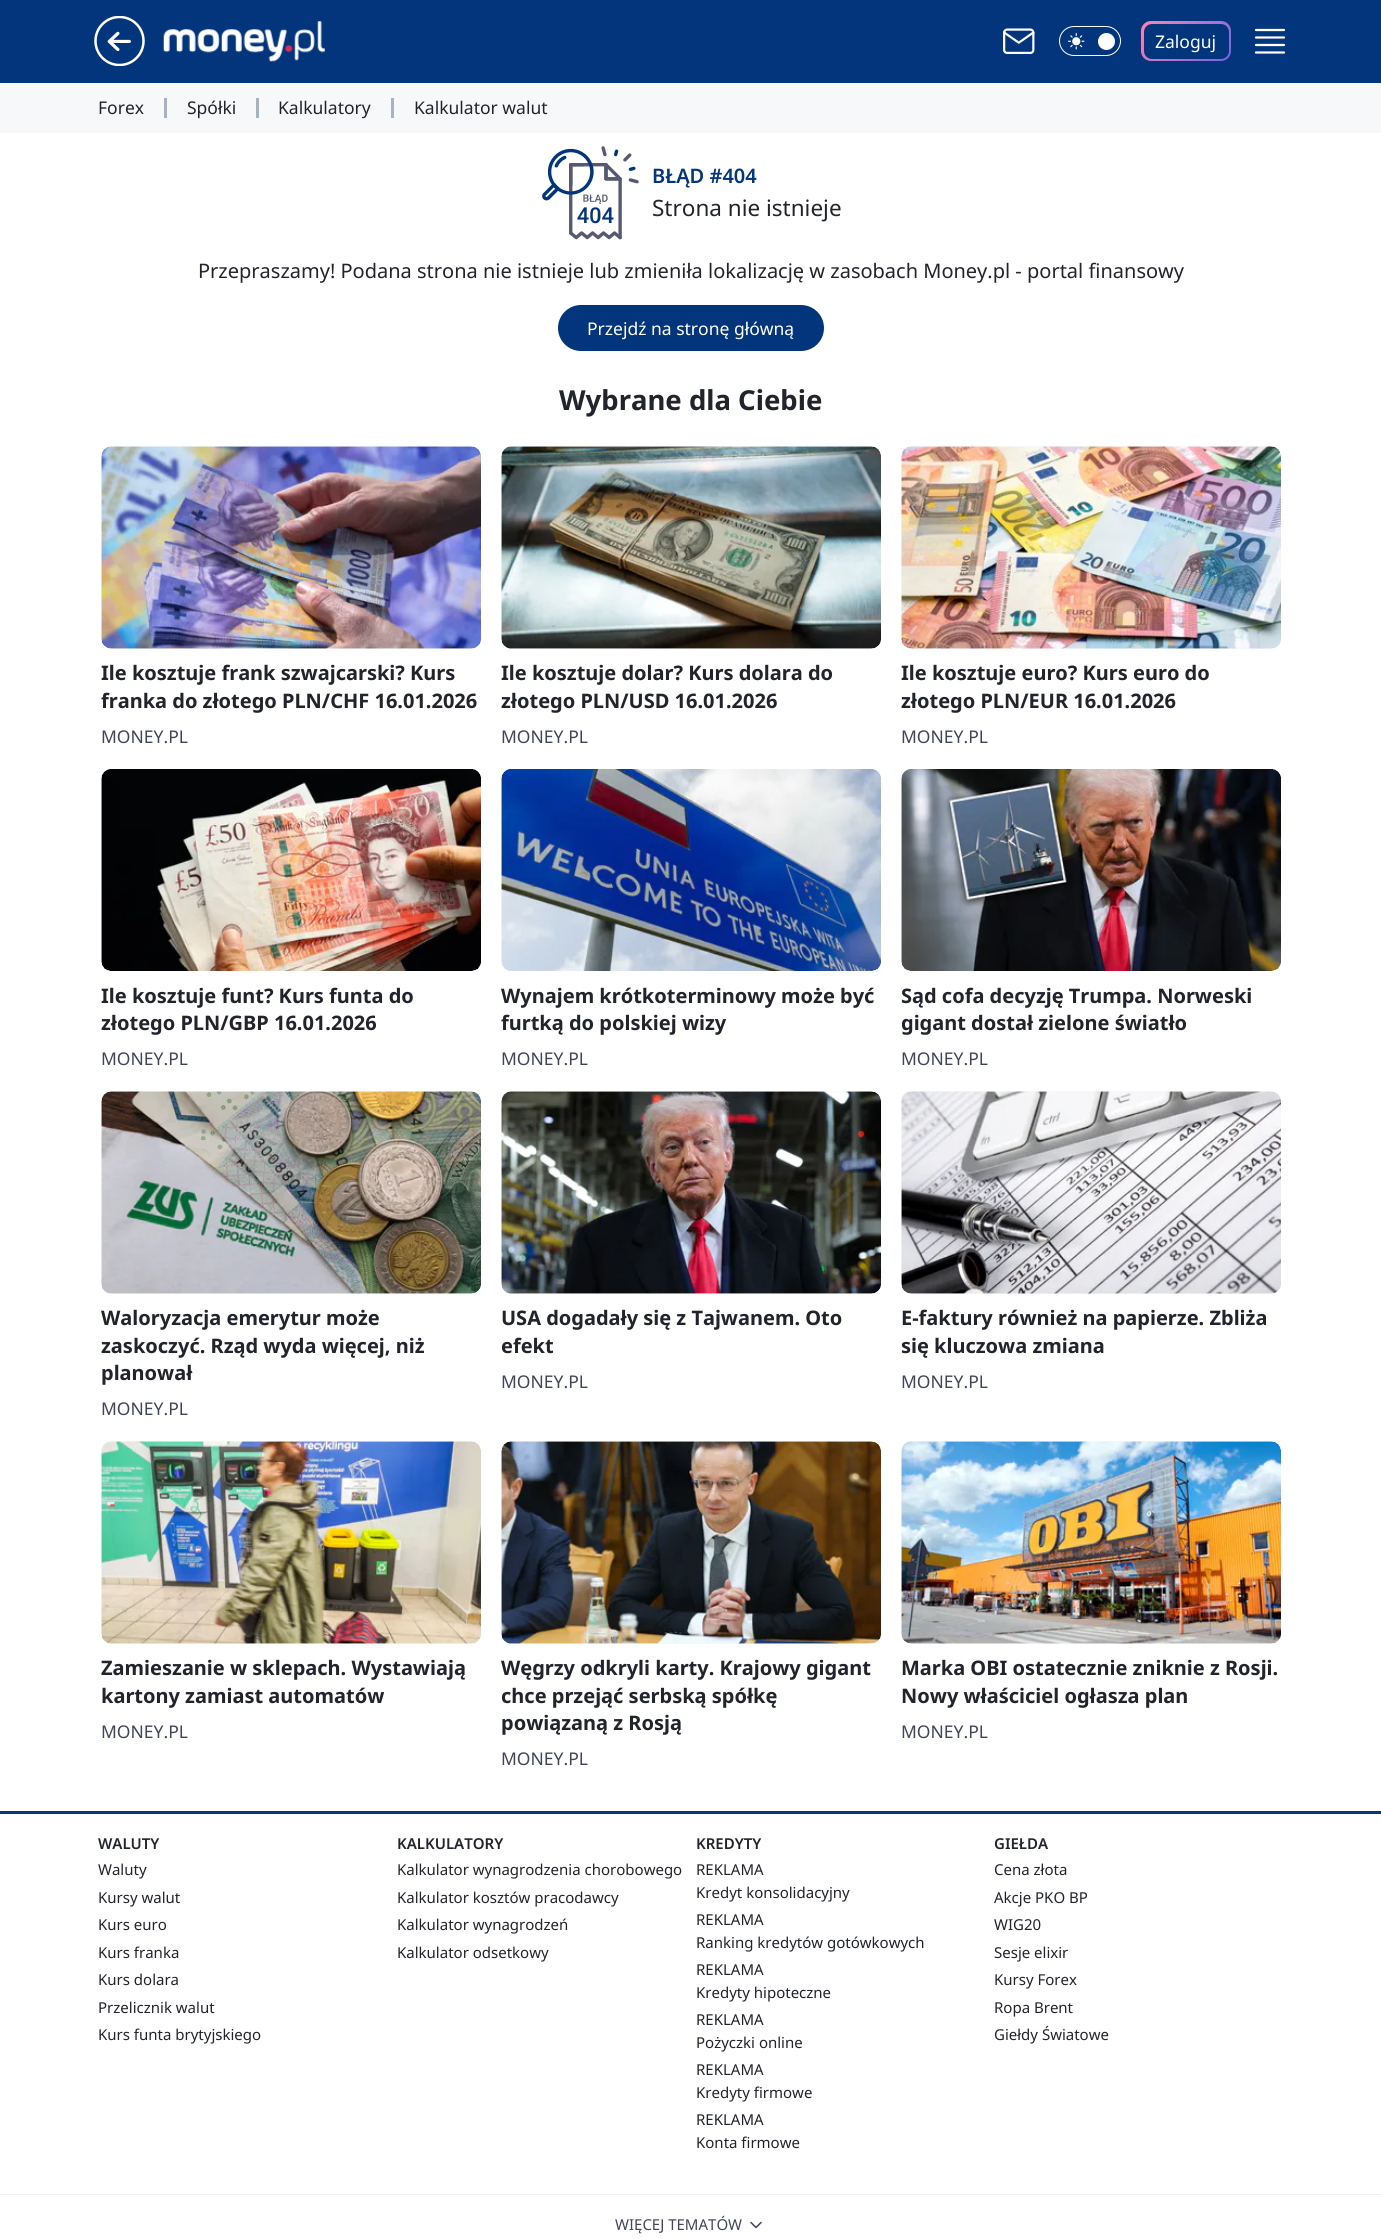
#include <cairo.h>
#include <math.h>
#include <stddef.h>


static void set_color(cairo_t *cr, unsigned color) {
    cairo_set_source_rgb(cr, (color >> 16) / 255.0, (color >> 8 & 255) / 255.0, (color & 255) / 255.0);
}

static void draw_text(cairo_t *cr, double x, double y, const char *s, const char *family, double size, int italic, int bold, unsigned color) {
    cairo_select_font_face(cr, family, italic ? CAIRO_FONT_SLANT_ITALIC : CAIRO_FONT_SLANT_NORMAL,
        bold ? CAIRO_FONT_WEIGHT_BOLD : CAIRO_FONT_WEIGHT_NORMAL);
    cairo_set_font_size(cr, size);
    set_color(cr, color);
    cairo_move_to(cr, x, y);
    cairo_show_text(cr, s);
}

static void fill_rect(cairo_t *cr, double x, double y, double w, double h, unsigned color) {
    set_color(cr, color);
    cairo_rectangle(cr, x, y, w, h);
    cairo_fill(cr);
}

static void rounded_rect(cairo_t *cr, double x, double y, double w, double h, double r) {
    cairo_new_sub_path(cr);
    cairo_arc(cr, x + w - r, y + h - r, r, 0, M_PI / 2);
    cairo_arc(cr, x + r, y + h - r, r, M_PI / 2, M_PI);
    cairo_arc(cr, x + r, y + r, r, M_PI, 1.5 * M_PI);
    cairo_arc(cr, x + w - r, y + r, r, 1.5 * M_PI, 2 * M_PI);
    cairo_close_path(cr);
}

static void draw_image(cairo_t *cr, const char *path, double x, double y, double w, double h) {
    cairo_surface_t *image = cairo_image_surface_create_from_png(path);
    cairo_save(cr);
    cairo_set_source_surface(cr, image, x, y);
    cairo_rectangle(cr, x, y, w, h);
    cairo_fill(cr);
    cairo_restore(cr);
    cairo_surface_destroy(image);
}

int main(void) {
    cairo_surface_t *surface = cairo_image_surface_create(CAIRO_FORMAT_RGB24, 1381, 2239);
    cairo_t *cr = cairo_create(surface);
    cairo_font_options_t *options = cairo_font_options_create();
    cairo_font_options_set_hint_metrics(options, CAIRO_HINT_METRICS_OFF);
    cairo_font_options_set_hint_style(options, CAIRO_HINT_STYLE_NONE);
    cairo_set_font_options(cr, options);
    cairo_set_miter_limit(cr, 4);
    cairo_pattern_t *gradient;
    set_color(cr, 0xFFFFFF);
    cairo_paint(cr);
    fill_rect(cr, 0, 0, 1381, 83, 0x03357D);
    draw_image(cr, "assets/img1.png", 94, 16, 51, 50);
    draw_image(cr, "assets/img2.png", 163, 21, 162, 41);
    draw_image(cr, "assets/img3.png", 1003, 28, 32, 26);
    rounded_rect(cr, 1059.5, 26.5, 61, 29, 14.5);
    set_color(cr, 0xFFFFFF);
    cairo_set_line_width(cr, 1);
    cairo_stroke(cr);
    draw_image(cr, "assets/img4.png", 1068, 33, 17, 17);
    cairo_arc(cr, 1106.5, 41.5, 8.5, 0, 2 * M_PI);
    cairo_fill(cr);
    gradient = cairo_pattern_create_linear(1154, 9, 1219, 74);
    cairo_pattern_add_color_stop_rgba(gradient, 0, 1, 0.518, 0.69, 1);
    cairo_pattern_add_color_stop_rgba(gradient, 1, 0.431, 0.396, 0.898, 1);
    cairo_set_source(cr, gradient);
    cairo_pattern_destroy(gradient);
    rounded_rect(cr, 1141, 21, 90, 40, 10);
    cairo_fill(cr);
    set_color(cr, 0x03357D);
    rounded_rect(cr, 1144, 24, 85, 35, 8);
    cairo_fill(cr);
    draw_text(cr, 1155, 48, "Zaloguj", "Noto Sans", 17.5, 0, 0, 0xFFFFFF);
    cairo_new_path(cr);
    cairo_move_to(cr, 1256, 45);
    cairo_line_to(cr, 1284, 45);
    cairo_move_to(cr, 1256, 37.5);
    cairo_line_to(cr, 1284, 37.5);
    cairo_move_to(cr, 1256, 30);
    cairo_line_to(cr, 1284, 30);
    cairo_move_to(cr, 1256, 52.5);
    cairo_line_to(cr, 1284, 52.5);
    cairo_set_line_width(cr, 2.2);
    cairo_set_line_cap(cr, CAIRO_LINE_CAP_ROUND);
    cairo_set_line_join(cr, CAIRO_LINE_JOIN_ROUND);
    cairo_stroke(cr);
    fill_rect(cr, 0, 83, 1381, 50, 0xF7F8FA);
    draw_text(cr, 98, 114, "Forex", "Noto Sans", 17.5, 0, 0, 0x22242D);
    fill_rect(cr, 164, 98, 3, 20, 0xA8B2C7);
    draw_text(cr, 187, 114, "Spółki", "Noto Sans", 17.5, 0, 0, 0x22242D);
    fill_rect(cr, 256, 98, 3, 20, 0xA8B2C7);
    draw_text(cr, 278, 114, "Kalkulatory", "Noto Sans", 17.5, 0, 0, 0x22242D);
    fill_rect(cr, 391, 98, 3, 20, 0xA8B2C7);
    draw_text(cr, 414, 114, "Kalkulator walut", "Noto Sans", 17.5, 0, 0, 0x22242D);
    draw_image(cr, "assets/img5.png", 542, 146, 97, 94);
    draw_text(cr, 652, 183, "BŁĄD #404", "Noto Sans SemiBold", 20, 0, 0, 0x03357D);
    draw_text(cr, 652, 216, "Strona nie istnieje", "Noto Sans", 22.5, 0, 0, 0x22242D);
    draw_text(cr, 198, 278, "Przepraszamy! Podana strona nie istnieje lub zmieniła lokalizację w zasobach Money.pl - portal finansowy", "Noto Sans", 20, 0, 0, 0x22242D);
    set_color(cr, 0x03357D);
    rounded_rect(cr, 558, 305, 266, 46, 23);
    cairo_fill(cr);
    draw_text(cr, 587, 335, "Przejdź na stronę główną", "Noto Sans", 17.5, 0, 0, 0xFFFFFF);
    draw_text(cr, 559, 410, "Wybrane dla Ciebie", "Noto Sans", 27.5, 0, 1, 0x22242D);
    set_color(cr, 0xF7F8FA);
    rounded_rect(cr, 101, 446, 380, 203, 10);
    cairo_fill(cr);
    draw_image(cr, "assets/img6.png", 101, 446, 380, 203);
    draw_text(cr, 101, 680, "Ile kosztuje frank szwajcarski? Kurs", "Noto Sans", 20, 0, 1, 0x22242D);
    draw_text(cr, 101, 708, "franka do złotego PLN/CHF 16.01.2026", "Noto Sans", 20, 0, 1, 0x22242D);
    draw_text(cr, 101, 743, "MONEY.PL", "Noto Sans", 17.5, 0, 0, 0x41455A);
    set_color(cr, 0xF7F8FA);
    rounded_rect(cr, 501, 446, 380, 203, 10);
    cairo_fill(cr);
    draw_image(cr, "assets/img7.png", 501, 446, 381, 203);
    draw_text(cr, 501, 680, "Ile kosztuje dolar? Kurs dolara do", "Noto Sans", 20, 0, 1, 0x22242D);
    draw_text(cr, 501, 708, "złotego PLN/USD 16.01.2026", "Noto Sans", 20, 0, 1, 0x22242D);
    draw_text(cr, 501, 743, "MONEY.PL", "Noto Sans", 17.5, 0, 0, 0x41455A);
    set_color(cr, 0xF7F8FA);
    rounded_rect(cr, 901, 446, 380, 203, 10);
    cairo_fill(cr);
    draw_image(cr, "assets/img8.png", 901, 446, 380, 203);
    draw_text(cr, 901, 680, "Ile kosztuje euro? Kurs euro do", "Noto Sans", 20, 0, 1, 0x22242D);
    draw_text(cr, 901, 708, "złotego PLN/EUR 16.01.2026", "Noto Sans", 20, 0, 1, 0x22242D);
    draw_text(cr, 901, 743, "MONEY.PL", "Noto Sans", 17.5, 0, 0, 0x41455A);
    set_color(cr, 0xF7F8FA);
    rounded_rect(cr, 101, 769, 380, 202, 10);
    cairo_fill(cr);
    draw_image(cr, "assets/img9.png", 101, 769, 380, 202);
    draw_text(cr, 101, 1003, "Ile kosztuje funt? Kurs funta do", "Noto Sans", 20, 0, 1, 0x22242D);
    draw_text(cr, 101, 1030, "złotego PLN/GBP 16.01.2026", "Noto Sans", 20, 0, 1, 0x22242D);
    draw_text(cr, 101, 1065, "MONEY.PL", "Noto Sans", 17.5, 0, 0, 0x41455A);
    set_color(cr, 0xF7F8FA);
    rounded_rect(cr, 501, 769, 380, 202, 10);
    cairo_fill(cr);
    draw_image(cr, "assets/img10.png", 501, 769, 380, 202);
    draw_text(cr, 501, 1003, "Wynajem krótkoterminowy może być", "Noto Sans", 20, 0, 1, 0x22242D);
    draw_text(cr, 501, 1030, "furtką do polskiej wizy", "Noto Sans", 20, 0, 1, 0x22242D);
    draw_text(cr, 501, 1065, "MONEY.PL", "Noto Sans", 17.5, 0, 0, 0x41455A);
    set_color(cr, 0xF7F8FA);
    rounded_rect(cr, 901, 769, 380, 202, 10);
    cairo_fill(cr);
    draw_image(cr, "assets/img11.png", 901, 769, 380, 202);
    draw_text(cr, 901, 1003, "Sąd cofa decyzję Trumpa. Norweski", "Noto Sans", 20, 0, 1, 0x22242D);
    draw_text(cr, 901, 1030, "gigant dostał zielone światło", "Noto Sans", 20, 0, 1, 0x22242D);
    draw_text(cr, 901, 1065, "MONEY.PL", "Noto Sans", 17.5, 0, 0, 0x41455A);
    set_color(cr, 0xF7F8FA);
    rounded_rect(cr, 101, 1091, 380, 203, 10);
    cairo_fill(cr);
    draw_image(cr, "assets/img12.png", 101, 1091, 380, 203);
    draw_text(cr, 101, 1325, "Waloryzacja emerytur może", "Noto Sans", 20, 0, 1, 0x22242D);
    draw_text(cr, 101, 1353, "zaskoczyć. Rząd wyda więcej, niż", "Noto Sans", 20, 0, 1, 0x22242D);
    draw_text(cr, 101, 1380, "planował", "Noto Sans", 20, 0, 1, 0x22242D);
    draw_text(cr, 101, 1415, "MONEY.PL", "Noto Sans", 17.5, 0, 0, 0x41455A);
    set_color(cr, 0xF7F8FA);
    rounded_rect(cr, 501, 1091, 380, 203, 10);
    cairo_fill(cr);
    draw_image(cr, "assets/img13.png", 501, 1091, 381, 203);
    draw_text(cr, 501, 1325, "USA dogadały się z Tajwanem. Oto", "Noto Sans", 20, 0, 1, 0x22242D);
    draw_text(cr, 501, 1353, "efekt", "Noto Sans", 20, 0, 1, 0x22242D);
    draw_text(cr, 501, 1388, "MONEY.PL", "Noto Sans", 17.5, 0, 0, 0x41455A);
    set_color(cr, 0xF7F8FA);
    rounded_rect(cr, 901, 1091, 380, 203, 10);
    cairo_fill(cr);
    draw_image(cr, "assets/img14.png", 901, 1091, 380, 203);
    draw_text(cr, 901, 1325, "E-faktury również na papierze. Zbliża", "Noto Sans", 20, 0, 1, 0x22242D);
    draw_text(cr, 901, 1353, "się kluczowa zmiana", "Noto Sans", 20, 0, 1, 0x22242D);
    draw_text(cr, 901, 1388, "MONEY.PL", "Noto Sans", 17.5, 0, 0, 0x41455A);
    set_color(cr, 0xF7F8FA);
    rounded_rect(cr, 101, 1441, 380, 203, 10);
    cairo_fill(cr);
    draw_image(cr, "assets/img15.png", 101, 1441, 380, 203);
    draw_text(cr, 101, 1675, "Zamieszanie w sklepach. Wystawiają", "Noto Sans", 20, 0, 1, 0x22242D);
    draw_text(cr, 101, 1703, "kartony zamiast automatów", "Noto Sans", 20, 0, 1, 0x22242D);
    draw_text(cr, 101, 1738, "MONEY.PL", "Noto Sans", 17.5, 0, 0, 0x41455A);
    set_color(cr, 0xF7F8FA);
    rounded_rect(cr, 501, 1441, 380, 203, 10);
    cairo_fill(cr);
    draw_image(cr, "assets/img16.png", 501, 1441, 381, 203);
    draw_text(cr, 501, 1675, "Węgrzy odkryli karty. Krajowy gigant", "Noto Sans", 20, 0, 1, 0x22242D);
    draw_text(cr, 501, 1703, "chce przejąć serbską spółkę", "Noto Sans", 20, 0, 1, 0x22242D);
    draw_text(cr, 501, 1730, "powiązaną z Rosją", "Noto Sans", 20, 0, 1, 0x22242D);
    draw_text(cr, 501, 1765, "MONEY.PL", "Noto Sans", 17.5, 0, 0, 0x41455A);
    set_color(cr, 0xF7F8FA);
    rounded_rect(cr, 901, 1441, 380, 203, 10);
    cairo_fill(cr);
    draw_image(cr, "assets/img17.png", 901, 1441, 381, 203);
    draw_text(cr, 901, 1675, "Marka OBI ostatecznie zniknie z Rosji.", "Noto Sans", 20, 0, 1, 0x22242D);
    draw_text(cr, 901, 1703, "Nowy właściciel ogłasza plan", "Noto Sans", 20, 0, 1, 0x22242D);
    draw_text(cr, 901, 1738, "MONEY.PL", "Noto Sans", 17.5, 0, 0, 0x41455A);
    fill_rect(cr, 0, 1811, 1381, 3, 0x03357D);
    draw_text(cr, 98, 1849, "WALUTY", "Noto Sans SemiBold", 15, 0, 0, 0x22242D);
    draw_text(cr, 98, 1875, "Waluty", "Noto Sans", 15, 0, 0, 0x22242D);
    draw_text(cr, 98, 1903, "Kursy walut", "Noto Sans", 15, 0, 0, 0x22242D);
    draw_text(cr, 98, 1930, "Kurs euro", "Noto Sans", 15, 0, 0, 0x22242D);
    draw_text(cr, 98, 1958, "Kurs franka", "Noto Sans", 15, 0, 0, 0x22242D);
    draw_text(cr, 98, 1985, "Kurs dolara", "Noto Sans", 15, 0, 0, 0x22242D);
    draw_text(cr, 98, 2013, "Przelicznik walut", "Noto Sans", 15, 0, 0, 0x22242D);
    draw_text(cr, 98, 2040, "Kurs funta brytyjskiego", "Noto Sans", 15, 0, 0, 0x22242D);
    draw_text(cr, 397, 1849, "KALKULATORY", "Noto Sans SemiBold", 15, 0, 0, 0x22242D);
    draw_text(cr, 397, 1875, "Kalkulator wynagrodzenia chorobowego", "Noto Sans", 15, 0, 0, 0x22242D);
    draw_text(cr, 397, 1903, "Kalkulator kosztów pracodawcy", "Noto Sans", 15, 0, 0, 0x22242D);
    draw_text(cr, 397, 1930, "Kalkulator wynagrodzeń", "Noto Sans", 15, 0, 0, 0x22242D);
    draw_text(cr, 397, 1958, "Kalkulator odsetkowy", "Noto Sans", 15, 0, 0, 0x22242D);
    draw_text(cr, 696, 1849, "KREDYTY", "Noto Sans SemiBold", 15, 0, 0, 0x22242D);
    draw_text(cr, 696, 1875, "REKLAMA", "Noto Sans", 15, 0, 0, 0x22242D);
    draw_text(cr, 696, 1898, "Kredyt konsolidacyjny", "Noto Sans", 15, 0, 0, 0x22242D);
    draw_text(cr, 696, 1925, "REKLAMA", "Noto Sans", 15, 0, 0, 0x22242D);
    draw_text(cr, 696, 1948, "Ranking kredytów gotówkowych", "Noto Sans", 15, 0, 0, 0x22242D);
    draw_text(cr, 696, 1975, "REKLAMA", "Noto Sans", 15, 0, 0, 0x22242D);
    draw_text(cr, 696, 1998, "Kredyty hipoteczne", "Noto Sans", 15, 0, 0, 0x22242D);
    draw_text(cr, 696, 2025, "REKLAMA", "Noto Sans", 15, 0, 0, 0x22242D);
    draw_text(cr, 696, 2048, "Pożyczki online", "Noto Sans", 15, 0, 0, 0x22242D);
    draw_text(cr, 696, 2075, "REKLAMA", "Noto Sans", 15, 0, 0, 0x22242D);
    draw_text(cr, 696, 2098, "Kredyty firmowe", "Noto Sans", 15, 0, 0, 0x22242D);
    draw_text(cr, 696, 2125, "REKLAMA", "Noto Sans", 15, 0, 0, 0x22242D);
    draw_text(cr, 696, 2148, "Konta firmowe", "Noto Sans", 15, 0, 0, 0x22242D);
    draw_text(cr, 994, 1849, "GIEŁDA", "Noto Sans SemiBold", 15, 0, 0, 0x22242D);
    draw_text(cr, 994, 1875, "Cena złota", "Noto Sans", 15, 0, 0, 0x22242D);
    draw_text(cr, 994, 1903, "Akcje PKO BP", "Noto Sans", 15, 0, 0, 0x22242D);
    draw_text(cr, 994, 1930, "WIG20", "Noto Sans", 15, 0, 0, 0x22242D);
    draw_text(cr, 994, 1958, "Sesje elixir", "Noto Sans", 15, 0, 0, 0x22242D);
    draw_text(cr, 994, 1985, "Kursy Forex", "Noto Sans", 15, 0, 0, 0x22242D);
    draw_text(cr, 994, 2013, "Ropa Brent", "Noto Sans", 15, 0, 0, 0x22242D);
    draw_text(cr, 994, 2040, "Giełdy Światowe", "Noto Sans", 15, 0, 0, 0x22242D);
    fill_rect(cr, 0, 2194, 1381, 1, 0xEFF1F5);
    draw_text(cr, 615, 2230, "WIĘCEJ TEMATÓW", "Noto Sans", 15, 0, 0, 0x41455A);
    cairo_new_path(cr);
    cairo_move_to(cr, 751, 2222.5);
    cairo_line_to(cr, 756, 2227.5);
    cairo_line_to(cr, 761, 2222.5);
    cairo_set_line_width(cr, 1.5);
    cairo_stroke(cr);
    cairo_surface_write_to_png(surface, "output.png");
    cairo_font_options_destroy(options);
    cairo_destroy(cr);
    cairo_surface_destroy(surface);
    return 0;
}
